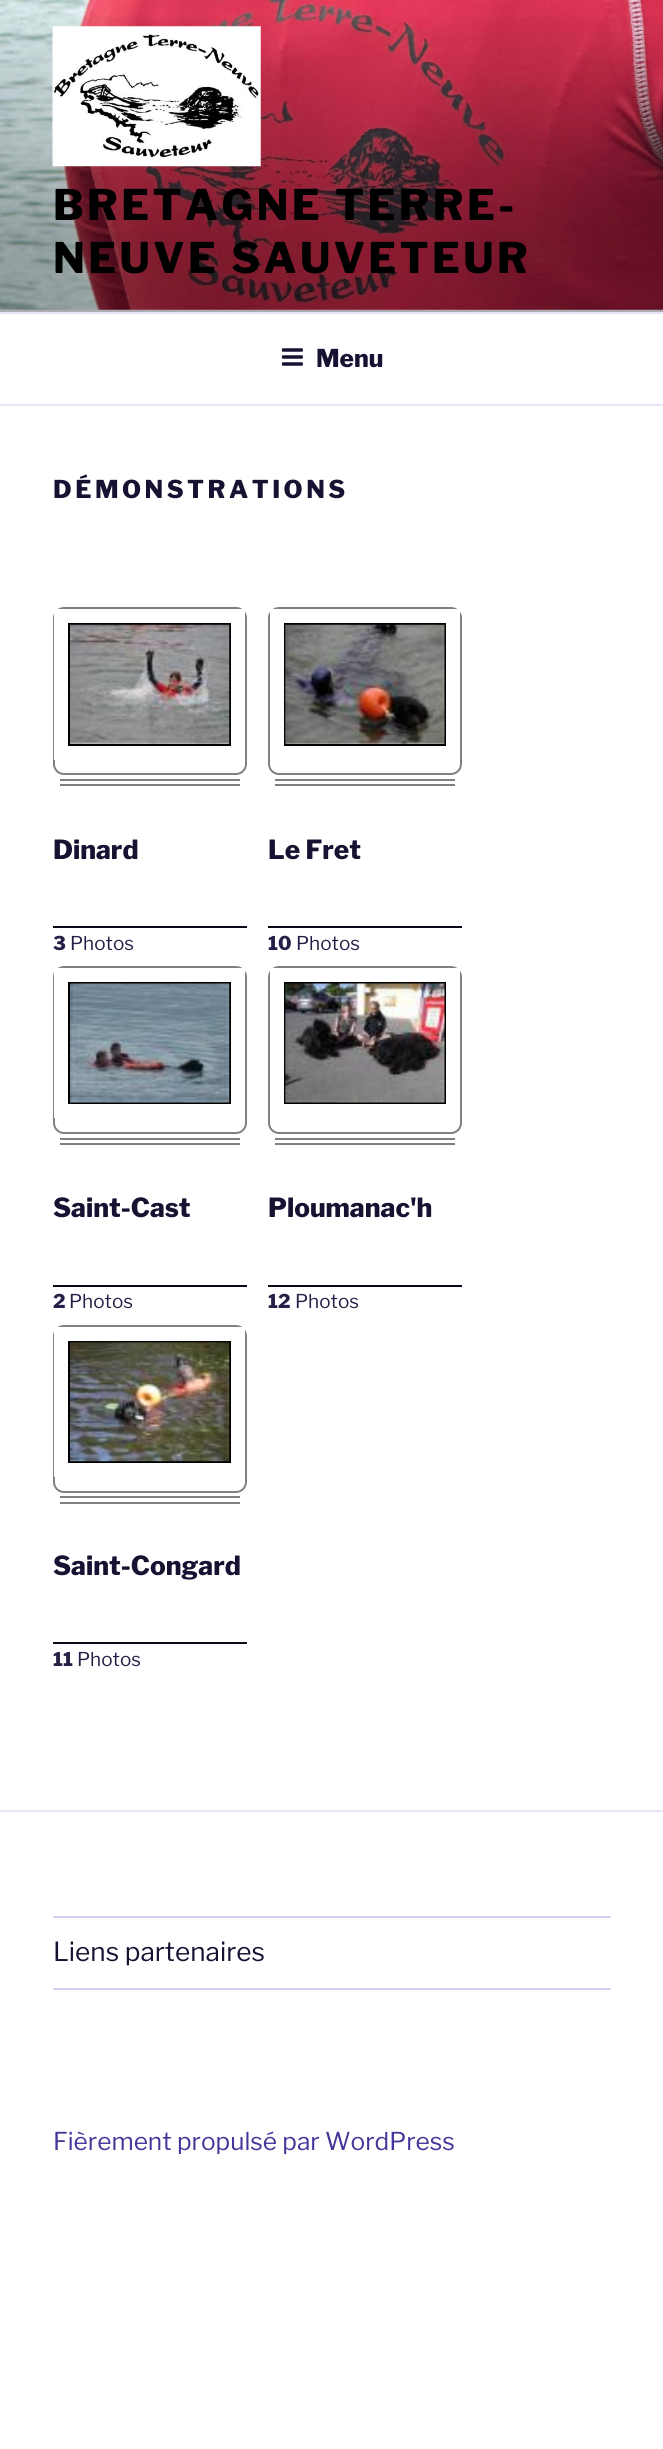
#include <cairo.h>
#include <math.h>
#include <stddef.h>


static void set_color(cairo_t *cr, unsigned color) {
    cairo_set_source_rgb(cr, (color >> 16) / 255.0, (color >> 8 & 255) / 255.0, (color & 255) / 255.0);
}

static void draw_text(cairo_t *cr, double x, double y, const char *s, const char *family, double size, int italic, int bold, unsigned color) {
    cairo_select_font_face(cr, family, italic ? CAIRO_FONT_SLANT_ITALIC : CAIRO_FONT_SLANT_NORMAL,
        bold ? CAIRO_FONT_WEIGHT_BOLD : CAIRO_FONT_WEIGHT_NORMAL);
    cairo_set_font_size(cr, size);
    set_color(cr, color);
    cairo_move_to(cr, x, y);
    cairo_show_text(cr, s);
}

static void draw_spaced(cairo_t *cr, double x, double y, const char *s, double letter, double word) {
    cairo_move_to(cr, x, y);
    while (*s) {
        char ch[5] = {0};
        int n = 0;
        do ch[n++] = *s++; while ((*s & 0xC0) == 0x80);
        cairo_show_text(cr, ch);
        cairo_rel_move_to(cr, letter + word * (*ch == ' '), 0);
    }
}

static void fill_rect(cairo_t *cr, double x, double y, double w, double h, unsigned color) {
    set_color(cr, color);
    cairo_rectangle(cr, x, y, w, h);
    cairo_fill(cr);
}

static void rounded_rect(cairo_t *cr, double x, double y, double w, double h, double r) {
    cairo_new_sub_path(cr);
    cairo_arc(cr, x + w - r, y + h - r, r, 0, M_PI / 2);
    cairo_arc(cr, x + r, y + h - r, r, M_PI / 2, M_PI);
    cairo_arc(cr, x + r, y + r, r, M_PI, 1.5 * M_PI);
    cairo_arc(cr, x + w - r, y + r, r, 1.5 * M_PI, 2 * M_PI);
    cairo_close_path(cr);
}

static void draw_image(cairo_t *cr, const char *path, double x, double y, double w, double h) {
    cairo_surface_t *image = cairo_image_surface_create_from_png(path);
    cairo_save(cr);
    cairo_set_source_surface(cr, image, x, y);
    cairo_rectangle(cr, x, y, w, h);
    cairo_fill(cr);
    cairo_restore(cr);
    cairo_surface_destroy(image);
}

int main(void) {
    cairo_surface_t *surface = cairo_image_surface_create(CAIRO_FORMAT_RGB24, 663, 2449);
    cairo_t *cr = cairo_create(surface);
    cairo_font_options_t *options = cairo_font_options_create();
    cairo_font_options_set_hint_metrics(options, CAIRO_HINT_METRICS_OFF);
    cairo_font_options_set_hint_style(options, CAIRO_HINT_STYLE_NONE);
    cairo_set_font_options(cr, options);
    cairo_set_miter_limit(cr, 4);
    cairo_pattern_t *gradient;
    set_color(cr, 0xFFFFFF);
    cairo_paint(cr);
    fill_rect(cr, 0, 309, 663, 3, 0xF8F7FC);
    draw_image(cr, "assets/img1.png", 0, 0, 663, 310);
    gradient = cairo_pattern_create_linear(332, 0, 332, 312);
    cairo_pattern_add_color_stop_rgba(gradient, 0, 0, 0, 0, 0);
    cairo_pattern_add_color_stop_rgba(gradient, 0.75, 0, 0, 0, 0.3);
    cairo_pattern_add_color_stop_rgba(gradient, 1, 0, 0, 0, 0.3);
    cairo_set_source(cr, gradient);
    cairo_pattern_destroy(gradient);
    cairo_rectangle(cr, 0, 17, 663, 295);
    cairo_fill(cr);
    draw_image(cr, "assets/img2.png", 52, 26, 209, 141);
    cairo_select_font_face(cr, "Libre Franklin Thin", CAIRO_FONT_SLANT_NORMAL, CAIRO_FONT_WEIGHT_NORMAL);
    cairo_set_font_size(cr, 42);
    set_color(cr, 0x000000);
    draw_spaced(cr, 53, 220, "BRETAGNE TERRE-", 3.4, 0);
    draw_spaced(cr, 53, 273, "NEUVE SAUVETEUR", 3.4, 0);
    fill_rect(cr, 0, 312, 663, 2, 0xE8E4F6);
    fill_rect(cr, 0, 404, 663, 2, 0xE8E4F6);
    draw_image(cr, "assets/img3.png", 281, 348, 22, 18);
    draw_text(cr, 316, 367, "Menu", "Libre Franklin Thin", 24.5, 0, 0, 0x171132);
    draw_spaced(cr, 53, 498, "DÉMONSTRATIONS", 3.5, 0);
    rounded_rect(cr, 54, 608, 192, 166, 10);
    set_color(cr, 0x808080);
    cairo_stroke(cr);
    cairo_rectangle(cr, 61, 616, 177, 137);
    set_color(cr, 0xFFFFFF);
    cairo_set_line_width(cr, 14);
    cairo_stroke(cr);
    cairo_rectangle(cr, 69, 624, 161, 121);
    set_color(cr, 0x000000);
    cairo_set_line_width(cr, 2);
    cairo_stroke(cr);
    draw_image(cr, "assets/img4.png", 70, 624, 160, 120);
    fill_rect(cr, 60, 779, 180, 2, 0x808080);
    fill_rect(cr, 60, 784, 180, 2, 0x808080);
    fill_rect(cr, 53, 926, 194, 2, 0x0B0817);
    draw_text(cr, 53, 859, "Dinard", "Libre Franklin Thin", 26.25, 0, 0, 0x171132);
    draw_text(cr, 53, 950, "3", "Libre Franklin Thin", 19, 0, 0, 0x271F47);
    draw_text(cr, 70, 950, "Photos", "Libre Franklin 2 Thin", 19, 0, 0, 0x271F47);
    rounded_rect(cr, 269, 608, 192, 166, 10);
    set_color(cr, 0x808080);
    cairo_stroke(cr);
    cairo_rectangle(cr, 277, 616, 176, 137);
    set_color(cr, 0xFFFFFF);
    cairo_set_line_width(cr, 14);
    cairo_stroke(cr);
    cairo_rectangle(cr, 285, 624, 160, 121);
    set_color(cr, 0x000000);
    cairo_set_line_width(cr, 2);
    cairo_stroke(cr);
    draw_image(cr, "assets/img5.png", 285, 624, 160, 120);
    fill_rect(cr, 275, 779, 180, 2, 0x808080);
    fill_rect(cr, 275, 784, 180, 2, 0x808080);
    fill_rect(cr, 268, 926, 194, 2, 0x0B0817);
    draw_text(cr, 268, 859, "Le Fret", "Libre Franklin Thin", 26.25, 0, 0, 0x171132);
    draw_text(cr, 268, 950, "10", "Libre Franklin Thin", 19, 0, 0, 0x271F47);
    draw_text(cr, 296, 950, "Photos", "Libre Franklin 2 Thin", 19, 0, 0, 0x271F47);
    rounded_rect(cr, 54, 967, 192, 166, 10);
    set_color(cr, 0x808080);
    cairo_stroke(cr);
    cairo_rectangle(cr, 61, 975, 177, 136);
    set_color(cr, 0xFFFFFF);
    cairo_set_line_width(cr, 14);
    cairo_stroke(cr);
    cairo_rectangle(cr, 69, 983, 161, 120);
    set_color(cr, 0x000000);
    cairo_set_line_width(cr, 2);
    cairo_stroke(cr);
    draw_image(cr, "assets/img6.png", 70, 983, 160, 120);
    fill_rect(cr, 60, 1138, 180, 2, 0x808080);
    fill_rect(cr, 60, 1143, 180, 2, 0x808080);
    fill_rect(cr, 53, 1285, 194, 2, 0x0B0817);
    draw_text(cr, 53, 1217, "Saint-Cast", "Libre Franklin Thin", 26.25, 0, 0, 0x171132);
    draw_text(cr, 53, 1308, "2", "Libre Franklin Thin", 19, 0, 0, 0x271F47);
    draw_text(cr, 69, 1308, "Photos", "Libre Franklin 2 Thin", 19, 0, 0, 0x271F47);
    rounded_rect(cr, 269, 967, 192, 166, 10);
    set_color(cr, 0x808080);
    cairo_stroke(cr);
    cairo_rectangle(cr, 277, 975, 176, 136);
    set_color(cr, 0xFFFFFF);
    cairo_set_line_width(cr, 14);
    cairo_stroke(cr);
    cairo_rectangle(cr, 285, 983, 160, 120);
    set_color(cr, 0x000000);
    cairo_set_line_width(cr, 2);
    cairo_stroke(cr);
    draw_image(cr, "assets/img7.png", 285, 983, 160, 120);
    fill_rect(cr, 275, 1138, 180, 2, 0x808080);
    fill_rect(cr, 275, 1143, 180, 2, 0x808080);
    fill_rect(cr, 268, 1285, 194, 2, 0x0B0817);
    draw_text(cr, 268, 1217, "Ploumanac'h", "Libre Franklin Thin", 26.25, 0, 0, 0x171132);
    draw_text(cr, 268, 1308, "12", "Libre Franklin Thin", 19, 0, 0, 0x271F47);
    draw_text(cr, 295, 1308, "Photos", "Libre Franklin 2 Thin", 19, 0, 0, 0x271F47);
    rounded_rect(cr, 54, 1326, 192, 166, 10);
    set_color(cr, 0x808080);
    cairo_stroke(cr);
    cairo_rectangle(cr, 61, 1334, 177, 136);
    set_color(cr, 0xFFFFFF);
    cairo_set_line_width(cr, 14);
    cairo_stroke(cr);
    cairo_rectangle(cr, 69, 1342, 161, 120);
    set_color(cr, 0x000000);
    cairo_set_line_width(cr, 2);
    cairo_stroke(cr);
    draw_image(cr, "assets/img8.png", 70, 1342, 160, 120);
    fill_rect(cr, 60, 1496, 180, 2, 0x808080);
    fill_rect(cr, 60, 1502, 180, 2, 0x808080);
    fill_rect(cr, 53, 1642, 194, 2, 0x0B0817);
    draw_text(cr, 53, 1575, "Saint-Congard", "Libre Franklin Thin", 26.25, 0, 0, 0x171132);
    draw_text(cr, 53, 1666, "11", "Libre Franklin Thin", 19, 0, 0, 0x271F47);
    draw_text(cr, 77, 1666, "Photos", "Libre Franklin 2 Thin", 19, 0, 0, 0x271F47);
    fill_rect(cr, 0, 1810, 663, 2, 0xE8E4F6);
    fill_rect(cr, 53, 1916, 558, 2, 0xD4CDEE);
    fill_rect(cr, 53, 1988, 558, 2, 0xD4CDEE);
    draw_text(cr, 53, 1961, "Liens partenaires", "Libre Franklin 2 Thin", 26.25, 0, 0, 0x171132);
    draw_text(cr, 53, 2150, "Fièrement propulsé par WordPress", "Libre Franklin 2 Thin", 24.5, 0, 0, 0x473399);
    cairo_surface_write_to_png(surface, "output.png");
    cairo_font_options_destroy(options);
    cairo_destroy(cr);
    cairo_surface_destroy(surface);
    return 0;
}
